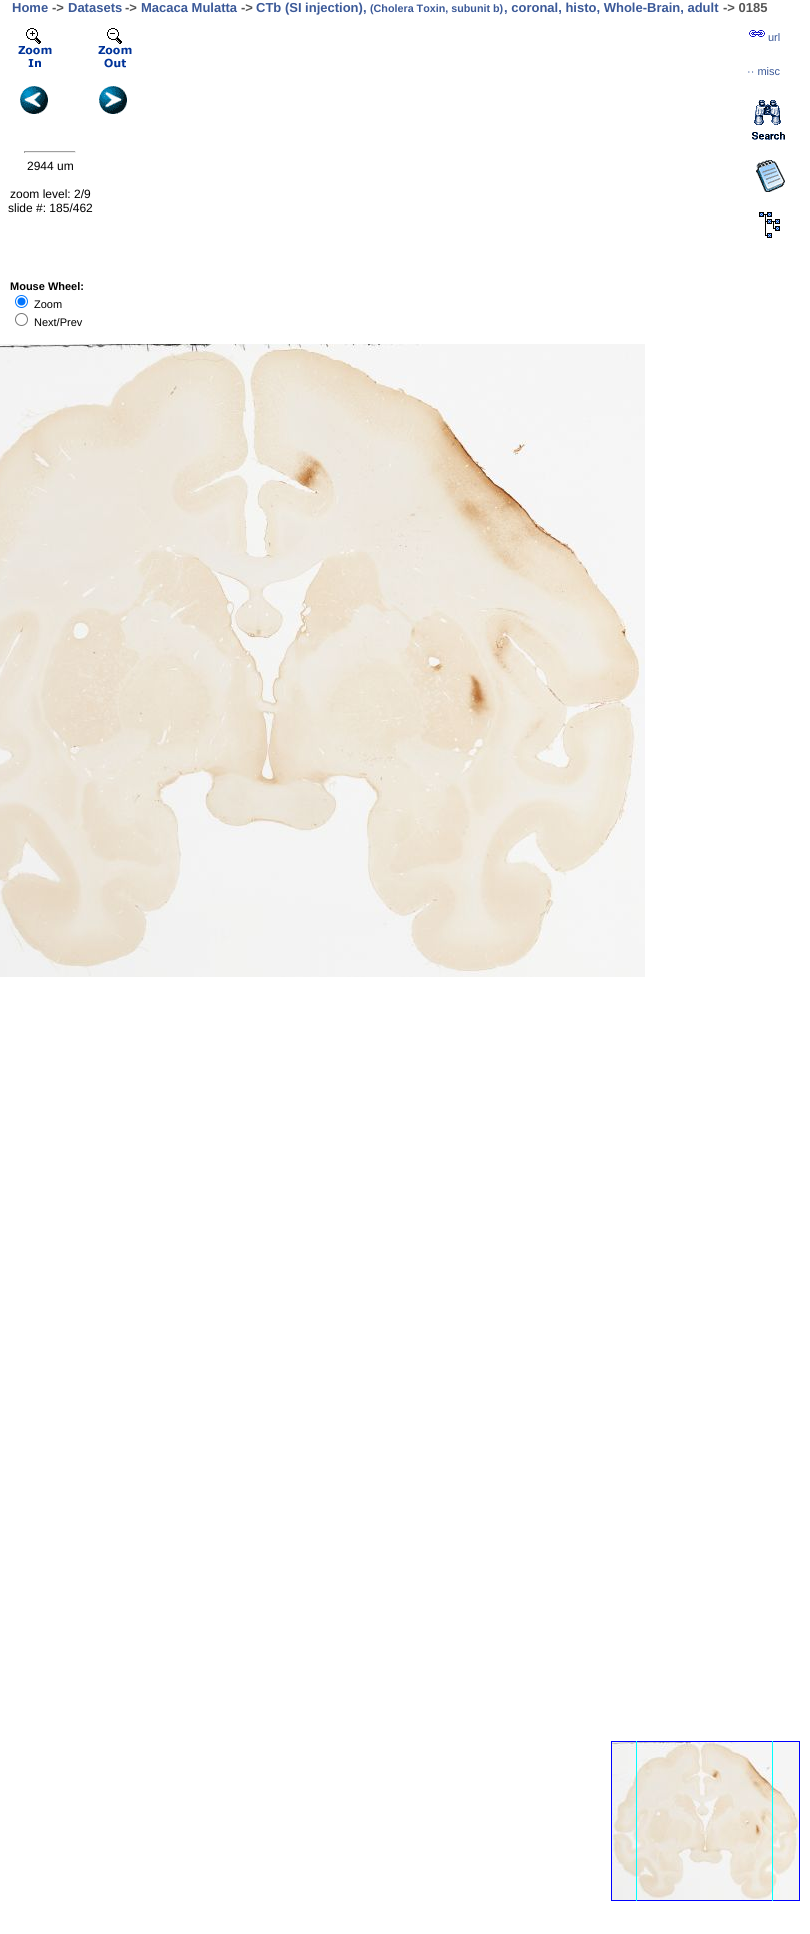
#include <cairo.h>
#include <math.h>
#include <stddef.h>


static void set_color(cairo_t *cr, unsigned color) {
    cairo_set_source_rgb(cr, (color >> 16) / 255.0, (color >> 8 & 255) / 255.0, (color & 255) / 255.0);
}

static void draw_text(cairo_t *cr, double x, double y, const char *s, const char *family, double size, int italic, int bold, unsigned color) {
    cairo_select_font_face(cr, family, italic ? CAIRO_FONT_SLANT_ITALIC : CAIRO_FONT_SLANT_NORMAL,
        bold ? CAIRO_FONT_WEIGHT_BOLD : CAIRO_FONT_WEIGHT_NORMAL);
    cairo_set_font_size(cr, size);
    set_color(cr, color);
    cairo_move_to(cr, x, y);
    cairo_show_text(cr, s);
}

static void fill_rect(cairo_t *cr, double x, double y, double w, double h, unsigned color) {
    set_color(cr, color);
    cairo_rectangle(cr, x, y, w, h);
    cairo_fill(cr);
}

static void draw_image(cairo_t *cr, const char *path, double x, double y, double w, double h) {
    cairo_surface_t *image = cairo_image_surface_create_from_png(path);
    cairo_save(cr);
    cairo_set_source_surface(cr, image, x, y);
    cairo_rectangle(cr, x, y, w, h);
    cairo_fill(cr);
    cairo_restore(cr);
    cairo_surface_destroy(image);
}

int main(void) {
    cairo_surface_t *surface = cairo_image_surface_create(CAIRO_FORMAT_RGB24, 810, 1934);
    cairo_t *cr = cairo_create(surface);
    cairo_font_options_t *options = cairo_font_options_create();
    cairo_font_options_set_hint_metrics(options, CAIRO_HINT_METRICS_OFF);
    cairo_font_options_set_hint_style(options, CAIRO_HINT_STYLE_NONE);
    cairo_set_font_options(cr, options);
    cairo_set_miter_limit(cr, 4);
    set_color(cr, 0xFFFFFF);
    cairo_paint(cr);
    draw_text(cr, 12, 12, "Home", "Liberation Sans", 13, 0, 1, 0x3B5998);
    draw_text(cr, 52, 12, "->", "Liberation Sans", 13, 0, 1, 0x555555);
    draw_text(cr, 68, 12, "Datasets", "Liberation Sans", 13, 0, 1, 0x3B5998);
    draw_text(cr, 125, 12, "->", "Liberation Sans", 13, 0, 1, 0x555555);
    draw_text(cr, 141, 12, "Macaca Mulatta", "Liberation Sans", 13, 0, 1, 0x3B5998);
    draw_text(cr, 241, 12, "->", "Liberation Sans", 13, 0, 1, 0x555555);
    draw_text(cr, 256, 12, "CTb (SI injection),", "Liberation Sans", 13, 0, 1, 0x3B5998);
    draw_text(cr, 370, 12, "(Cholera Toxin, subunit b)", "Liberation Sans", 10.75, 0, 1, 0x3B5998);
    draw_text(cr, 504, 12, ", coronal, histo, Whole-Brain, adult", "Liberation Sans", 13, 0, 1, 0x3B5998);
    draw_text(cr, 723, 12, "-> 0185", "Liberation Sans", 13, 0, 1, 0x555555);
    draw_image(cr, "assets/img1.png", 18, 28, 34, 39);
    draw_image(cr, "assets/img2.png", 98, 28, 34, 40);
    draw_image(cr, "assets/img3.png", 20, 86, 28, 28);
    draw_image(cr, "assets/img4.png", 99, 86, 28, 28);
    draw_image(cr, "assets/img5.png", 0, 344, 151, 256);
    draw_image(cr, "assets/img6.png", 151, 344, 256, 256);
    draw_image(cr, "assets/img7.png", 407, 344, 238, 256);
    draw_image(cr, "assets/img8.png", 0, 600, 151, 256);
    draw_image(cr, "assets/img9.png", 151, 600, 256, 256);
    draw_image(cr, "assets/img10.png", 407, 600, 238, 256);
    draw_image(cr, "assets/img11.png", 0, 856, 151, 121);
    draw_image(cr, "assets/img12.png", 151, 856, 256, 121);
    draw_image(cr, "assets/img13.png", 407, 856, 238, 121);
    cairo_rectangle(cr, 611.5, 1741.5, 188, 159);
    set_color(cr, 0x0000FF);
    cairo_set_line_width(cr, 1);
    cairo_stroke(cr);
    draw_image(cr, "assets/img14.png", 612, 1742, 187, 158);
    cairo_save(cr);
    cairo_rectangle(cr, 609, 1741, 191, 160);
    cairo_clip(cr);
    cairo_rectangle(cr, 636.5, 1659.5, 136, 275);
    set_color(cr, 0x00FFFF);
    cairo_stroke(cr);
    cairo_restore(cr);
    draw_image(cr, "assets/img15.png", 749, 30, 16, 7);
    draw_text(cr, 768, 41, "url", "Liberation Sans", 11, 0, 0, 0x3B5998);
    draw_text(cr, 747, 75, "·· misc", "Liberation Sans", 11, 0, 0, 0x3B5998);
    draw_image(cr, "assets/img16.png", 752, 100, 33, 40);
    fill_rect(cr, 24, 151, 52, 1, 0x9F9F9F);
    fill_rect(cr, 75, 151, 1, 2, 0xEEEEEE);
    fill_rect(cr, 24, 152, 52, 1, 0xEEEEEE);
    fill_rect(cr, 24, 151, 1, 2, 0x9F9F9F);
    draw_text(cr, 27, 170, "2944 um", "Liberation Sans", 12, 0, 0, 0x000000);
    draw_text(cr, 10, 198, "zoom level: 2/9", "Liberation Sans", 12, 0, 0, 0x000000);
    draw_text(cr, 8, 212, "slide #: 185/462", "Liberation Sans", 12, 0, 0, 0x000000);
    draw_image(cr, "assets/img17.png", 756, 160, 29, 32);
    draw_image(cr, "assets/img18.png", 759, 212, 21, 26);
    draw_text(cr, 10, 290, "Mouse Wheel:", "Liberation Sans", 11, 0, 1, 0x000000);
    cairo_new_path(cr);
    cairo_arc(cr, 21.5, 301.5, 6, 0, 2 * M_PI);
    set_color(cr, 0x0075FF);
    cairo_stroke(cr);
    cairo_arc(cr, 21.5, 301.5, 4, 0, 2 * M_PI);
    cairo_fill(cr);
    draw_text(cr, 34, 308, "Zoom", "Liberation Sans", 11, 0, 0, 0x000000);
    cairo_new_path(cr);
    cairo_arc(cr, 21.5, 319.5, 6, 0, 2 * M_PI);
    set_color(cr, 0x767676);
    cairo_stroke(cr);
    draw_text(cr, 34, 326, "Next/Prev", "Liberation Sans", 11, 0, 0, 0x000000);
    cairo_surface_write_to_png(surface, "output.png");
    cairo_font_options_destroy(options);
    cairo_destroy(cr);
    cairo_surface_destroy(surface);
    return 0;
}
